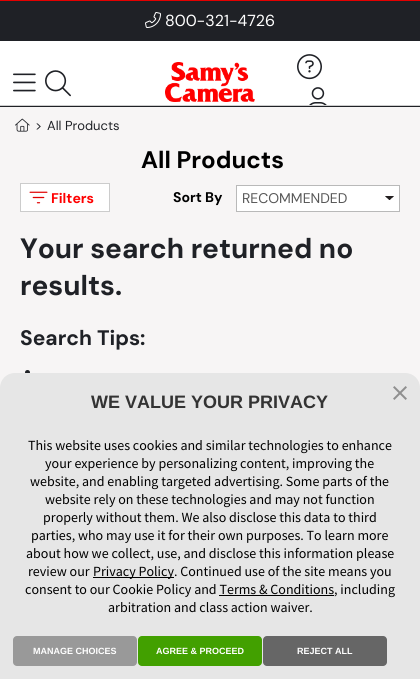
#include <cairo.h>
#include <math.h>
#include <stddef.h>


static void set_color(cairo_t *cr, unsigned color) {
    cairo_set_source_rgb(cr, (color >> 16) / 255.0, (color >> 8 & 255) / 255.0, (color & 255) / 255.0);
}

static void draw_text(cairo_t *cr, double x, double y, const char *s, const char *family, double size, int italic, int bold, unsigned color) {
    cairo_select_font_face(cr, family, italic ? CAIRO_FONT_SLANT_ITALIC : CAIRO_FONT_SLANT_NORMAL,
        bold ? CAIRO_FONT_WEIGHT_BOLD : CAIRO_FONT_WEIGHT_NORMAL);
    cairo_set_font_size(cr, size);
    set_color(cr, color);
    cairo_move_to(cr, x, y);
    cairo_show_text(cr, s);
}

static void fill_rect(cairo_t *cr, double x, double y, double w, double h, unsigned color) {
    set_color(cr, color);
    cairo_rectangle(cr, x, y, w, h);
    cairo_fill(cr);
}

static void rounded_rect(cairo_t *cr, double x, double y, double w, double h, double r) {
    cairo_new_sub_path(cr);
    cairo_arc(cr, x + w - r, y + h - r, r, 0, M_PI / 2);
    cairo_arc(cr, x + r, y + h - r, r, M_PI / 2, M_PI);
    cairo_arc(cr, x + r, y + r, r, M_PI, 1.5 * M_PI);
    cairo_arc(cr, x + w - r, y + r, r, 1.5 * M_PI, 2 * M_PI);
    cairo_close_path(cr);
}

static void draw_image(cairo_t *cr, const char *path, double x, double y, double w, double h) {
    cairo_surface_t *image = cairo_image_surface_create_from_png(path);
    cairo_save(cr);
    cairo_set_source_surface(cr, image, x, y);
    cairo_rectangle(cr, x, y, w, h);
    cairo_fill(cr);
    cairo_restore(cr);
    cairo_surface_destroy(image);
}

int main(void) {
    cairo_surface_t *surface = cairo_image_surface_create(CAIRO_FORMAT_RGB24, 420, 679);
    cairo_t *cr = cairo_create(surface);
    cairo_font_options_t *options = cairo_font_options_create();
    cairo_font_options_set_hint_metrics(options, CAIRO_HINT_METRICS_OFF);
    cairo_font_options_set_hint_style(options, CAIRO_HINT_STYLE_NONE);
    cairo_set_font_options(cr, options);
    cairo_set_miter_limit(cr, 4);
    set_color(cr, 0xFFFFFF);
    cairo_paint(cr);
    fill_rect(cr, 0, 1, 420, 40, 0x1F2126);
    fill_rect(cr, 0, 0, 420, 1, 0xE40000);
    draw_image(cr, "assets/img1.png", 145, 12, 16, 16);
    draw_text(cr, 165, 26, "800-321-4726", "DM Sans", 16, 0, 0, 0xFFFFFF);
    draw_image(cr, "assets/img2.png", 13, 73, 23, 19);
    draw_image(cr, "assets/img3.png", 45, 70, 26, 27);
    draw_image(cr, "assets/img4.png", 165, 62, 90, 40);
    draw_image(cr, "assets/img5.png", 297, 54, 25, 26);
    draw_image(cr, "assets/img6.png", 309, 87, 18, 18);
    fill_rect(cr, 0, 105, 420, 1, 0xCCCCCC);
    fill_rect(cr, 0, 107, 420, 281, 0xF7F5F5);
    fill_rect(cr, 0, 106, 420, 1, 0x1F2126);
    draw_image(cr, "assets/img7.png", 15, 118, 15, 14);
    draw_text(cr, 35, 130, ">", "DM Sans", 13, 0, 0, 0x1F2126);
    draw_text(cr, 47, 130, "All Products", "DM Sans", 13, 0, 0, 0x1F2126);
    draw_text(cr, 141, 168, "All Products", "DM Sans", 24, 0, 1, 0x000000);
    cairo_rectangle(cr, 20.5, 183.5, 89, 28);
    set_color(cr, 0xCCCCCC);
    cairo_set_line_width(cr, 1);
    cairo_stroke(cr);
    fill_rect(cr, 21, 184, 88, 27, 0xFFFFFF);
    draw_image(cr, "assets/img8.png", 29, 191, 19, 13);
    draw_text(cr, 51, 203, "Filters", "DM Sans", 14, 0, 1, 0xFF0000);
    draw_text(cr, 173, 202, "Sort By", "DM Sans", 14, 0, 1, 0x000000);
    fill_rect(cr, 237, 186, 162, 25, 0xFFFFFF);
    draw_image(cr, "assets/img9.png", 385, 196, 9, 4);
    cairo_rectangle(cr, 236.5, 185.5, 163, 26);
    set_color(cr, 0xB9B9B9);
    cairo_stroke(cr);
    draw_text(cr, 242, 203, "RECOMMENDED", "DM Sans", 14, 0, 0, 0x575757);
    draw_text(cr, 20, 258, "Your search returned no", "DM Sans", 28, 0, 1, 0x1F2126);
    draw_text(cr, 20, 295, "results.", "DM Sans", 28, 0, 1, 0x1F2126);
    draw_text(cr, 20, 345, "Search Tips:", "DM Sans", 21, 0, 1, 0x1F2126);
    cairo_new_path(cr);
    cairo_arc(cr, 27.5, 372.5, 2.5, 0, 2 * M_PI);
    cairo_fill(cr);
    set_color(cr, 0xE6E6E6);
    cairo_new_path(cr);
    cairo_move_to(cr, 15, 373);
    cairo_line_to(cr, 405, 373);
    cairo_curve_to(cr, 413.5, 373, 420, 379.5, 420, 388);
    cairo_line_to(cr, 420, 679);
    cairo_line_to(cr, 0, 679);
    cairo_line_to(cr, 0, 388);
    cairo_curve_to(cr, 0, 379.5, 6.5, 373, 15, 373);
    cairo_close_path(cr);
    cairo_fill(cr);
    draw_image(cr, "assets/img10.png", 393, 386, 14, 14);
    draw_text(cr, 91, 408, "WE VALUE YOUR PRIVACY", "Liberation Sans", 18, 0, 1, 0x333333);
    draw_text(cr, 28, 450, "This website uses cookies and similar technologies to enhance", "Source Sans Pro", 14, 0, 0, 0x000000);
    draw_text(cr, 45, 468, "your experience by personalizing content, improving the", "Source Sans Pro", 14, 0, 0, 0x000000);
    draw_text(cr, 30, 486, "website, and enabling targeted advertising. Some parts of the", "Source Sans Pro", 14, 0, 0, 0x000000);
    draw_text(cr, 45, 504, "website rely on these technologies and may not function", "Source Sans Pro", 14, 0, 0, 0x000000);
    draw_text(cr, 43, 522, "properly without them. We also disclose this data to third", "Source Sans Pro", 14, 0, 0, 0x000000);
    draw_text(cr, 31, 540, "parties, who may use it for their own purposes. To learn more", "Source Sans Pro", 14, 0, 0, 0x000000);
    draw_text(cr, 26, 558, "about how we collect, use, and disclose this information please", "Source Sans Pro", 14, 0, 0, 0x000000);
    draw_text(cr, 28, 576, "review our", "Source Sans Pro", 14, 0, 0, 0x000000);
    fill_rect(cr, 93, 577, 81, 1, 0x000000);
    draw_text(cr, 93, 576, "Privacy Policy. Continued use of the site means you", "Source Sans Pro", 14, 0, 0, 0x000000);
    draw_text(cr, 25, 594, "consent to our Cookie Policy and Terms & Conditions, including", "Source Sans Pro", 14, 0, 0, 0x000000);
    fill_rect(cr, 219, 595, 115, 1, 0x000000);
    draw_text(cr, 108, 612, "arbitration and class action waiver.", "Source Sans Pro", 14, 0, 0, 0x000000);
    set_color(cr, 0x999999);
    rounded_rect(cr, 13, 636, 124, 30, 4);
    cairo_fill(cr);
    draw_text(cr, 33, 654, "MANAGE CHOICES", "Liberation Sans", 9, 0, 1, 0xFFFFFF);
    set_color(cr, 0x42A000);
    rounded_rect(cr, 138, 636, 124, 30, 4);
    cairo_fill(cr);
    draw_text(cr, 156, 654, "AGREE & PROCEED", "Liberation Sans", 9, 0, 1, 0xFFFFFF);
    set_color(cr, 0x666666);
    rounded_rect(cr, 263, 636, 124, 30, 4);
    cairo_fill(cr);
    draw_text(cr, 297, 654, "REJECT ALL", "Liberation Sans", 9, 0, 1, 0xFFFFFF);
    cairo_surface_write_to_png(surface, "output.png");
    cairo_font_options_destroy(options);
    cairo_destroy(cr);
    cairo_surface_destroy(surface);
    return 0;
}
